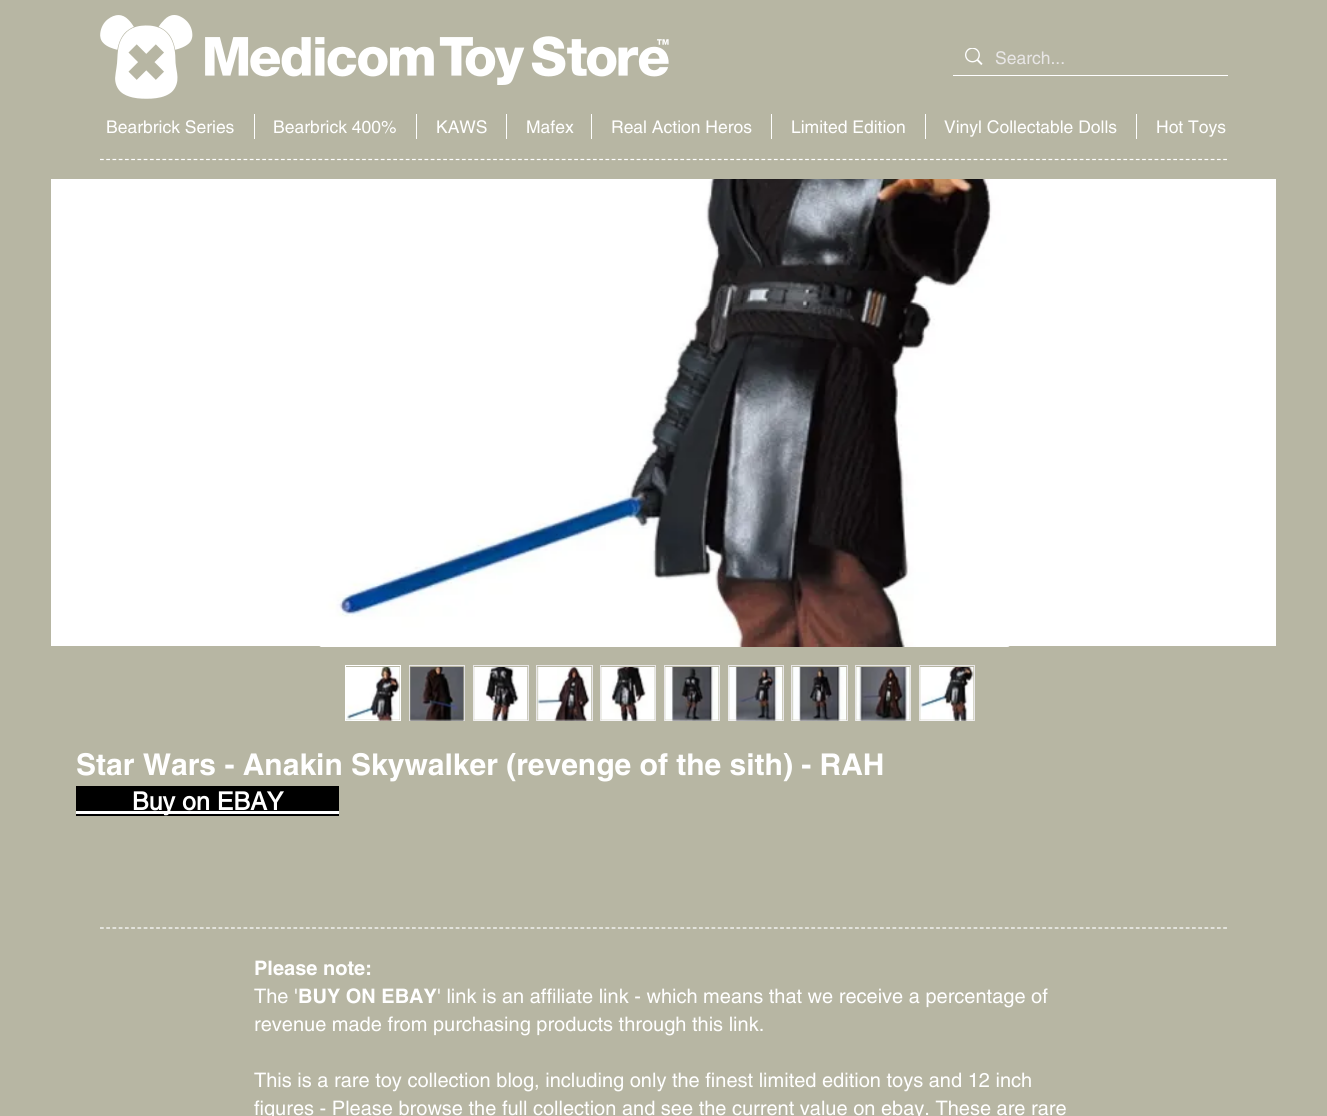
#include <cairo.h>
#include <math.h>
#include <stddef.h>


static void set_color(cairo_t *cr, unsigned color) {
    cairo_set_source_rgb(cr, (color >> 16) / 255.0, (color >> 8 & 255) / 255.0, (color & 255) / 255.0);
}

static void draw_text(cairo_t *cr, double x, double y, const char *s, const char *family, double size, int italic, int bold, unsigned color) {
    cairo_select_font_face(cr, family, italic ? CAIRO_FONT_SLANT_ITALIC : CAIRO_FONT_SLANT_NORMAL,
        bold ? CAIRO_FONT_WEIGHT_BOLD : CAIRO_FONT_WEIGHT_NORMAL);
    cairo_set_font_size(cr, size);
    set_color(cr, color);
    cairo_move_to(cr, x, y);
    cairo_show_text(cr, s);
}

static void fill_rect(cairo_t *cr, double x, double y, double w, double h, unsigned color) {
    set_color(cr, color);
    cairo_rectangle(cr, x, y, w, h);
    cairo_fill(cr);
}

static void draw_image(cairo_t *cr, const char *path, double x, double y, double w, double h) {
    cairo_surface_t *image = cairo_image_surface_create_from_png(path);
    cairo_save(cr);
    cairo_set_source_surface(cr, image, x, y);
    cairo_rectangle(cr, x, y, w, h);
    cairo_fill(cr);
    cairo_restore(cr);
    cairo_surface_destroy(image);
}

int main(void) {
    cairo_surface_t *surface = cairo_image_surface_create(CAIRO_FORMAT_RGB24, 1327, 1116);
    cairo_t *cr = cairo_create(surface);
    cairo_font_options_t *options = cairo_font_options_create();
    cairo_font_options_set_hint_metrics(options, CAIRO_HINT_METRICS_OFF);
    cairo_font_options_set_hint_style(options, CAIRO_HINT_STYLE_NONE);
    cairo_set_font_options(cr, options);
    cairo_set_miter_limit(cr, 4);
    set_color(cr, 0xB7B6A3);
    cairo_paint(cr);
    draw_image(cr, "assets/img1.png", 100, 15, 93, 84);
    draw_image(cr, "assets/img2.png", 205, 36, 464, 49);
    fill_rect(cr, 953, 75, 275, 1, 0xFFFFFF);
    draw_image(cr, "assets/img3.png", 965, 48, 18, 17);
    draw_text(cr, 995, 64, "Search...", "helvetica", 17.5, 0, 0, 0xE8E6E6);
    draw_text(cr, 106, 133, "Bearbrick Series", "helvetica", 17.5, 0, 0, 0xFFFFFF);
    fill_rect(cr, 254, 114, 1, 25, 0xFFFFFF);
    draw_text(cr, 273, 133, "Bearbrick 400%", "helvetica", 17.5, 0, 0, 0xFFFFFF);
    fill_rect(cr, 416, 114, 1, 25, 0xFFFFFF);
    draw_text(cr, 436, 133, "KAWS", "helvetica", 17.5, 0, 0, 0xFFFFFF);
    fill_rect(cr, 506, 114, 1, 25, 0xFFFFFF);
    draw_text(cr, 526, 133, "Mafex", "helvetica", 17.5, 0, 0, 0xFFFFFF);
    fill_rect(cr, 591, 114, 1, 25, 0xFFFFFF);
    draw_text(cr, 611, 133, "Real Action Heros", "helvetica", 17.5, 0, 0, 0xFFFFFF);
    fill_rect(cr, 771, 114, 1, 25, 0xFFFFFF);
    draw_text(cr, 791, 133, "Limited Edition", "helvetica", 17.5, 0, 0, 0xFFFFFF);
    fill_rect(cr, 925, 114, 1, 25, 0xFFFFFF);
    draw_text(cr, 944, 133, "Vinyl Collectable Dolls", "helvetica", 17.5, 0, 0, 0xFFFFFF);
    fill_rect(cr, 1136, 114, 1, 25, 0xFFFFFF);
    draw_text(cr, 1156, 133, "Hot Toys", "helvetica", 17.5, 0, 0, 0xFFFFFF);
    cairo_new_path(cr);
    cairo_move_to(cr, 100, 159.5);
    cairo_line_to(cr, 1227.5, 159.5);
    cairo_set_line_width(cr, 1.2);
    cairo_set_dash(cr, (double[]){3.75, 2.49}, 2, 0);
    cairo_stroke(cr);
    fill_rect(cr, 51, 179, 1225, 467, 0xFFFFFF);
    draw_image(cr, "assets/img4.png", 319, 179, 691, 468);
    cairo_rectangle(cr, 345.5, 665.5, 55, 55);
    cairo_set_line_width(cr, 1);
    cairo_set_dash(cr, NULL, 0, 0);
    cairo_stroke(cr);
    draw_image(cr, "assets/img5.png", 346, 667, 54, 54);
    cairo_rectangle(cr, 409.5, 665.5, 55, 55);
    set_color(cr, 0xE8E6E6);
    cairo_stroke(cr);
    draw_image(cr, "assets/img6.png", 409, 667, 56, 54);
    cairo_rectangle(cr, 473.5, 665.5, 55, 55);
    cairo_stroke(cr);
    draw_image(cr, "assets/img7.png", 473, 667, 55, 54);
    cairo_rectangle(cr, 536.5, 665.5, 56, 55);
    cairo_stroke(cr);
    draw_image(cr, "assets/img8.png", 537, 667, 55, 54);
    cairo_rectangle(cr, 600.5, 665.5, 55, 55);
    cairo_stroke(cr);
    draw_image(cr, "assets/img9.png", 601, 667, 54, 54);
    cairo_rectangle(cr, 664.5, 665.5, 55, 55);
    cairo_stroke(cr);
    draw_image(cr, "assets/img10.png", 665, 667, 54, 54);
    cairo_rectangle(cr, 728.5, 665.5, 55, 55);
    cairo_stroke(cr);
    draw_image(cr, "assets/img11.png", 728, 667, 55, 54);
    cairo_rectangle(cr, 791.5, 665.5, 56, 55);
    cairo_stroke(cr);
    draw_image(cr, "assets/img12.png", 792, 667, 55, 54);
    cairo_rectangle(cr, 855.5, 665.5, 55, 55);
    cairo_stroke(cr);
    draw_image(cr, "assets/img13.png", 856, 667, 54, 54);
    cairo_rectangle(cr, 919.5, 665.5, 55, 55);
    cairo_stroke(cr);
    draw_image(cr, "assets/img14.png", 920, 667, 54, 54);
    draw_text(cr, 76, 775, "Star Wars - Anakin Skywalker (revenge of the sith) - RAH", "helvetica", 30, 0, 1, 0xFFFFFF);
    fill_rect(cr, 76, 786, 263, 30, 0x000000);
    fill_rect(cr, 76, 811, 263, 3, 0xFFFFFF);
    draw_text(cr, 132, 810, "Buy on EBAY", "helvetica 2", 25, 0, 1, 0xFFFFFF);
    cairo_new_path(cr);
    cairo_move_to(cr, 100, 928);
    cairo_line_to(cr, 1227.5, 928);
    cairo_set_line_width(cr, 1.2);
    cairo_set_dash(cr, (double[]){3.75, 2.49}, 2, 0);
    cairo_stroke(cr);
    draw_text(cr, 254, 975, "Please note:", "helvetica", 20, 0, 1, 0xFFFFFF);
    draw_text(cr, 254, 1003, "The '", "helvetica", 20, 0, 0, 0xFFFFFF);
    draw_text(cr, 298, 1003, "BUY ON EBAY", "helvetica", 20, 0, 1, 0xFFFFFF);
    draw_text(cr, 437, 1003, "' link is an affiliate link - which means that we receive a percentage of", "helvetica", 20, 0, 0, 0xFFFFFF);
    draw_text(cr, 254, 1031, "revenue made from purchasing products through this link.", "helvetica", 20, 0, 0, 0xFFFFFF);
    draw_text(cr, 254, 1087, "This is a rare toy collection blog, including only the finest limited edition toys and 12 inch", "helvetica", 20, 0, 0, 0xFFFFFF);
    draw_text(cr, 254, 1115, "figures - Please browse the full collection and see the current value on ebay. These are rare", "helvetica", 20, 0, 0, 0xFFFFFF);
    cairo_surface_write_to_png(surface, "output.png");
    cairo_font_options_destroy(options);
    cairo_destroy(cr);
    cairo_surface_destroy(surface);
    return 0;
}
